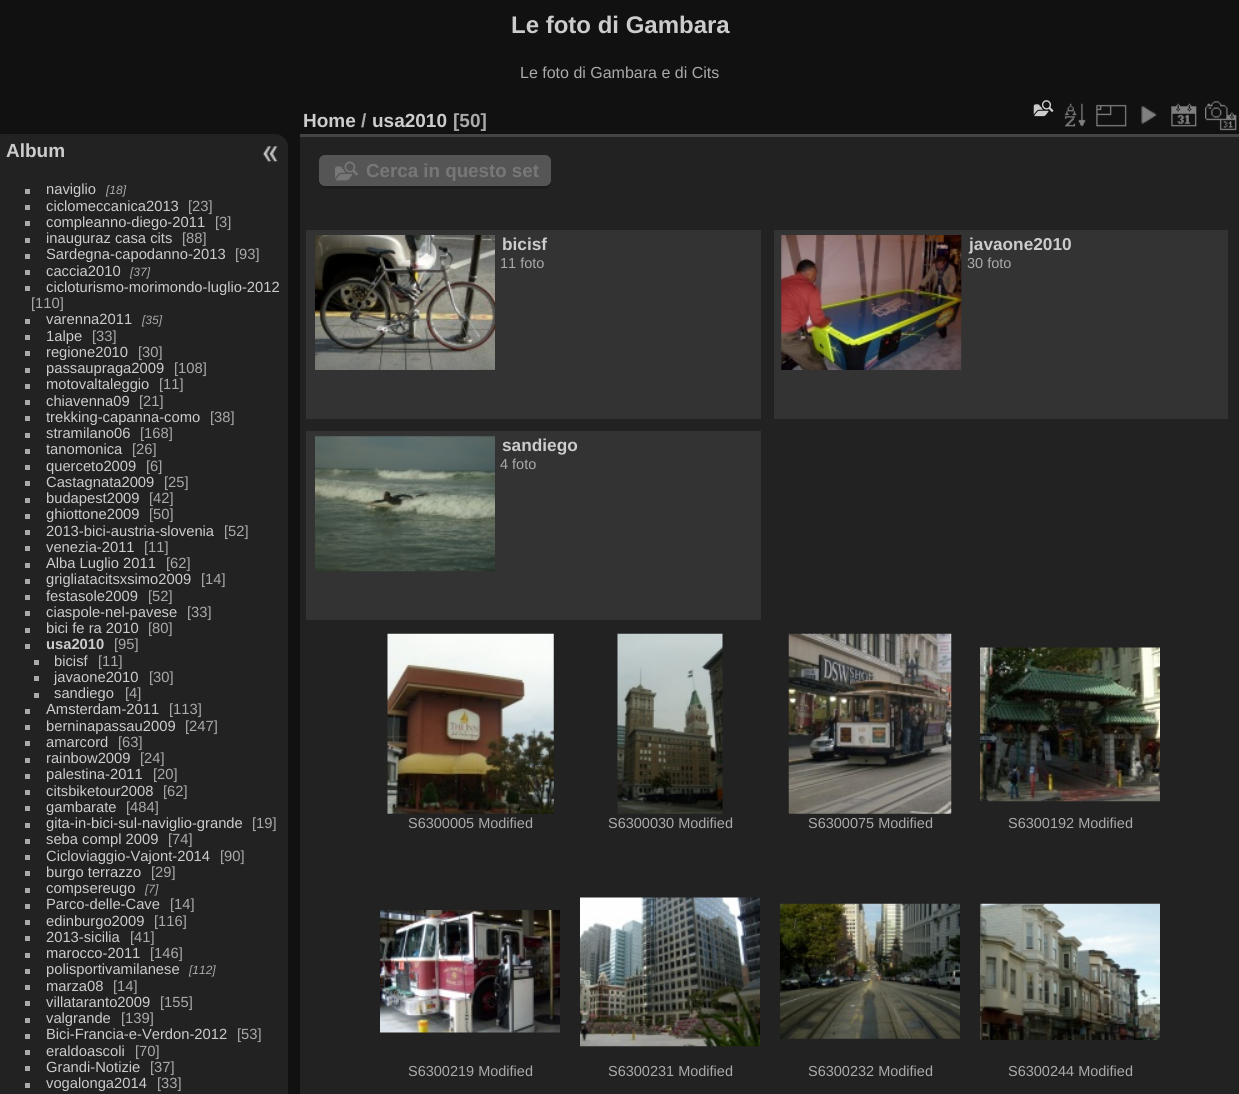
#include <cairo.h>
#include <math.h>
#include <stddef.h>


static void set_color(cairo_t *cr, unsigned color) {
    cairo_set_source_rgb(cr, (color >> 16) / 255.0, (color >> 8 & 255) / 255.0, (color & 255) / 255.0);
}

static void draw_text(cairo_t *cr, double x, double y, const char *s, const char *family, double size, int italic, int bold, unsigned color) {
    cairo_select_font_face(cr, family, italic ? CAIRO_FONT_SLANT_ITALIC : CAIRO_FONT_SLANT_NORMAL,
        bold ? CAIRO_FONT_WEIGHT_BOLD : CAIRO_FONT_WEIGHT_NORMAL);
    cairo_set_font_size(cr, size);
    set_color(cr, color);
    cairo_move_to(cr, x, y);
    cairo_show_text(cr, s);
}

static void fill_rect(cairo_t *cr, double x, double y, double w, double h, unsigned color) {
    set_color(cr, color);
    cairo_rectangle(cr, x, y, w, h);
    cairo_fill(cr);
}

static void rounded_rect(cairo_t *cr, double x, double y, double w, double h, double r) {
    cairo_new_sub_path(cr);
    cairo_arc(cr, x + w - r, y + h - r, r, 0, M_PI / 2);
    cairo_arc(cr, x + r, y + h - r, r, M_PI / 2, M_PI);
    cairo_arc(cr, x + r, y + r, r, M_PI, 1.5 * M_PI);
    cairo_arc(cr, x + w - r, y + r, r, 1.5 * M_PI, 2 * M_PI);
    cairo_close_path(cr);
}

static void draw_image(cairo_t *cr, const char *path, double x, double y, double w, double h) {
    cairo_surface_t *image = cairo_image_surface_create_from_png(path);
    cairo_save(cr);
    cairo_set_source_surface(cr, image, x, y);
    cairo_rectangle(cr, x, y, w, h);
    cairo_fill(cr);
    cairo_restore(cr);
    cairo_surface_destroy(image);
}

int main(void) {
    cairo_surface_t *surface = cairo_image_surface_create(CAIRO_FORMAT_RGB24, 1239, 1094);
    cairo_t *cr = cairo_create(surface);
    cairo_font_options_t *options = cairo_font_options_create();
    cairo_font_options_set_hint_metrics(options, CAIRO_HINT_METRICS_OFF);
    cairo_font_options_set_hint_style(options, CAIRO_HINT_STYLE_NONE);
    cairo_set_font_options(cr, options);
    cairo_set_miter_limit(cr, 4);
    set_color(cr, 0x111111);
    cairo_paint(cr);
    draw_text(cr, 511, 33, "Le foto di Gambara", "Liberation Sans", 24, 0, 1, 0xCCCCCC);
    draw_text(cr, 520, 78, "Le foto di Gambara e di Cits", "Liberation Sans", 16, 0, 0, 0xAAAAAA);
    set_color(cr, 0x222222);
    cairo_new_path(cr);
    cairo_move_to(cr, 0, 134);
    cairo_line_to(cr, 275, 134);
    cairo_curve_to(cr, 282, 134, 288, 140, 288, 147);
    cairo_line_to(cr, 288, 1094);
    cairo_curve_to(cr, 288, 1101, 282, 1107, 275, 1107);
    cairo_line_to(cr, 0, 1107);
    cairo_close_path(cr);
    cairo_fill(cr);
    draw_text(cr, 6, 157, "Album", "Liberation Sans", 19, 0, 1, 0xCCCCCC);
    fill_rect(cr, 25, 189, 5, 5, 0xAAAAAA);
    draw_text(cr, 46, 194, "naviglio", "Liberation Sans", 14.75, 0, 0, 0xCCCCCC);
    draw_text(cr, 106, 194, "[18]", "Liberation Sans", 12, 1, 0, 0xAAAAAA);
    fill_rect(cr, 25, 205, 5, 5, 0xAAAAAA);
    draw_text(cr, 46, 211, "ciclomeccanica2013", "Liberation Sans", 14.75, 0, 0, 0xCCCCCC);
    draw_text(cr, 188, 211, "[23]", "Liberation Sans", 14.75, 0, 0, 0xAAAAAA);
    fill_rect(cr, 25, 221, 5, 5, 0xAAAAAA);
    draw_text(cr, 46, 227, "compleanno-diego-2011", "Liberation Sans", 14.75, 0, 0, 0xCCCCCC);
    draw_text(cr, 215, 227, "[3]", "Liberation Sans", 14.75, 0, 0, 0xAAAAAA);
    fill_rect(cr, 25, 238, 5, 5, 0xAAAAAA);
    draw_text(cr, 46, 243, "inauguraz casa cits", "Liberation Sans", 14.75, 0, 0, 0xCCCCCC);
    draw_text(cr, 182, 243, "[88]", "Liberation Sans", 14.75, 0, 0, 0xAAAAAA);
    fill_rect(cr, 25, 254, 5, 5, 0xAAAAAA);
    draw_text(cr, 46, 259, "Sardegna-capodanno-2013", "Liberation Sans", 14.75, 0, 0, 0xCCCCCC);
    draw_text(cr, 235, 259, "[93]", "Liberation Sans", 14.75, 0, 0, 0xAAAAAA);
    fill_rect(cr, 25, 270, 5, 5, 0xAAAAAA);
    draw_text(cr, 46, 276, "caccia2010", "Liberation Sans", 14.75, 0, 0, 0xCCCCCC);
    draw_text(cr, 130, 276, "[37]", "Liberation Sans", 12, 1, 0, 0xAAAAAA);
    fill_rect(cr, 25, 286, 5, 5, 0xAAAAAA);
    draw_text(cr, 46, 292, "cicloturismo-morimondo-luglio-2012", "Liberation Sans", 14.75, 0, 0, 0xCCCCCC);
    draw_text(cr, 31, 308, "[110]", "Liberation Sans", 14.75, 0, 0, 0xAAAAAA);
    fill_rect(cr, 25, 319, 5, 5, 0xAAAAAA);
    draw_text(cr, 46, 324, "varenna2011", "Liberation Sans", 14.75, 0, 0, 0xCCCCCC);
    draw_text(cr, 142, 324, "[35]", "Liberation Sans", 12, 1, 0, 0xAAAAAA);
    fill_rect(cr, 25, 335, 5, 5, 0xAAAAAA);
    draw_text(cr, 46, 341, "1alpe", "Liberation Sans", 14.75, 0, 0, 0xCCCCCC);
    draw_text(cr, 92, 341, "[33]", "Liberation Sans", 14.75, 0, 0, 0xAAAAAA);
    fill_rect(cr, 25, 351, 5, 5, 0xAAAAAA);
    draw_text(cr, 46, 357, "regione2010", "Liberation Sans", 14.75, 0, 0, 0xCCCCCC);
    draw_text(cr, 138, 357, "[30]", "Liberation Sans", 14.75, 0, 0, 0xAAAAAA);
    fill_rect(cr, 25, 368, 5, 5, 0xAAAAAA);
    draw_text(cr, 46, 373, "passaupraga2009", "Liberation Sans", 14.75, 0, 0, 0xCCCCCC);
    draw_text(cr, 174, 373, "[108]", "Liberation Sans", 14.75, 0, 0, 0xAAAAAA);
    fill_rect(cr, 25, 384, 5, 5, 0xAAAAAA);
    draw_text(cr, 46, 389, "motovaltaleggio", "Liberation Sans", 14.75, 0, 0, 0xCCCCCC);
    draw_text(cr, 159, 389, "[11]", "Liberation Sans", 14.75, 0, 0, 0xAAAAAA);
    fill_rect(cr, 25, 400, 5, 5, 0xAAAAAA);
    draw_text(cr, 46, 406, "chiavenna09", "Liberation Sans", 14.75, 0, 0, 0xCCCCCC);
    draw_text(cr, 139, 406, "[21]", "Liberation Sans", 14.75, 0, 0, 0xAAAAAA);
    fill_rect(cr, 25, 416, 5, 5, 0xAAAAAA);
    draw_text(cr, 46, 422, "trekking-capanna-como", "Liberation Sans", 14.75, 0, 0, 0xCCCCCC);
    draw_text(cr, 210, 422, "[38]", "Liberation Sans", 14.75, 0, 0, 0xAAAAAA);
    fill_rect(cr, 25, 433, 5, 5, 0xAAAAAA);
    draw_text(cr, 46, 438, "stramilano06", "Liberation Sans", 14.75, 0, 0, 0xCCCCCC);
    draw_text(cr, 140, 438, "[168]", "Liberation Sans", 14.75, 0, 0, 0xAAAAAA);
    fill_rect(cr, 25, 449, 5, 5, 0xAAAAAA);
    draw_text(cr, 46, 454, "tanomonica", "Liberation Sans", 14.75, 0, 0, 0xCCCCCC);
    draw_text(cr, 132, 454, "[26]", "Liberation Sans", 14.75, 0, 0, 0xAAAAAA);
    fill_rect(cr, 25, 465, 5, 5, 0xAAAAAA);
    draw_text(cr, 46, 471, "querceto2009", "Liberation Sans", 14.75, 0, 0, 0xCCCCCC);
    draw_text(cr, 146, 471, "[6]", "Liberation Sans", 14.75, 0, 0, 0xAAAAAA);
    fill_rect(cr, 25, 481, 5, 5, 0xAAAAAA);
    draw_text(cr, 46, 487, "Castagnata2009", "Liberation Sans", 14.75, 0, 0, 0xCCCCCC);
    draw_text(cr, 164, 487, "[25]", "Liberation Sans", 14.75, 0, 0, 0xAAAAAA);
    fill_rect(cr, 25, 498, 5, 5, 0xAAAAAA);
    draw_text(cr, 46, 503, "budapest2009", "Liberation Sans", 14.75, 0, 0, 0xCCCCCC);
    draw_text(cr, 149, 503, "[42]", "Liberation Sans", 14.75, 0, 0, 0xAAAAAA);
    fill_rect(cr, 25, 514, 5, 5, 0xAAAAAA);
    draw_text(cr, 46, 519, "ghiottone2009", "Liberation Sans", 14.75, 0, 0, 0xCCCCCC);
    draw_text(cr, 149, 519, "[50]", "Liberation Sans", 14.75, 0, 0, 0xAAAAAA);
    fill_rect(cr, 25, 530, 5, 5, 0xAAAAAA);
    draw_text(cr, 46, 536, "2013-bici-austria-slovenia", "Liberation Sans", 14.75, 0, 0, 0xCCCCCC);
    draw_text(cr, 224, 536, "[52]", "Liberation Sans", 14.75, 0, 0, 0xAAAAAA);
    fill_rect(cr, 25, 546, 5, 5, 0xAAAAAA);
    draw_text(cr, 46, 552, "venezia-2011", "Liberation Sans", 14.75, 0, 0, 0xCCCCCC);
    draw_text(cr, 144, 552, "[11]", "Liberation Sans", 14.75, 0, 0, 0xAAAAAA);
    fill_rect(cr, 25, 563, 5, 5, 0xAAAAAA);
    draw_text(cr, 46, 568, "Alba Luglio 2011", "Liberation Sans", 14.75, 0, 0, 0xCCCCCC);
    draw_text(cr, 166, 568, "[62]", "Liberation Sans", 14.75, 0, 0, 0xAAAAAA);
    fill_rect(cr, 25, 579, 5, 5, 0xAAAAAA);
    draw_text(cr, 46, 584, "grigliatacitsxsimo2009", "Liberation Sans", 14.75, 0, 0, 0xCCCCCC);
    draw_text(cr, 201, 584, "[14]", "Liberation Sans", 14.75, 0, 0, 0xAAAAAA);
    fill_rect(cr, 25, 595, 5, 5, 0xAAAAAA);
    draw_text(cr, 46, 601, "festasole2009", "Liberation Sans", 14.75, 0, 0, 0xCCCCCC);
    draw_text(cr, 148, 601, "[52]", "Liberation Sans", 14.75, 0, 0, 0xAAAAAA);
    fill_rect(cr, 25, 611, 5, 5, 0xAAAAAA);
    draw_text(cr, 46, 617, "ciaspole-nel-pavese", "Liberation Sans", 14.75, 0, 0, 0xCCCCCC);
    draw_text(cr, 187, 617, "[33]", "Liberation Sans", 14.75, 0, 0, 0xAAAAAA);
    fill_rect(cr, 25, 628, 5, 5, 0xAAAAAA);
    draw_text(cr, 46, 633, "bici fe ra 2010", "Liberation Sans", 14.75, 0, 0, 0xCCCCCC);
    draw_text(cr, 148, 633, "[80]", "Liberation Sans", 14.75, 0, 0, 0xAAAAAA);
    fill_rect(cr, 25, 644, 5, 5, 0xAAAAAA);
    draw_text(cr, 46, 649, "usa2010", "Liberation Sans", 14.75, 0, 1, 0xCCCCCC);
    draw_text(cr, 114, 649, "[95]", "Liberation Sans", 14.75, 0, 0, 0xAAAAAA);
    fill_rect(cr, 34, 660, 5, 5, 0xAAAAAA);
    draw_text(cr, 54, 666, "bicisf", "Liberation Sans", 14.75, 0, 0, 0xCCCCCC);
    draw_text(cr, 98, 666, "[11]", "Liberation Sans", 14.75, 0, 0, 0xAAAAAA);
    fill_rect(cr, 34, 676, 5, 5, 0xAAAAAA);
    draw_text(cr, 54, 682, "javaone2010", "Liberation Sans", 14.75, 0, 0, 0xCCCCCC);
    draw_text(cr, 149, 682, "[30]", "Liberation Sans", 14.75, 0, 0, 0xAAAAAA);
    fill_rect(cr, 34, 693, 5, 5, 0xAAAAAA);
    draw_text(cr, 54, 698, "sandiego", "Liberation Sans", 14.75, 0, 0, 0xCCCCCC);
    draw_text(cr, 125, 698, "[4]", "Liberation Sans", 14.75, 0, 0, 0xAAAAAA);
    fill_rect(cr, 25, 709, 5, 5, 0xAAAAAA);
    draw_text(cr, 46, 714, "Amsterdam-2011", "Liberation Sans", 14.75, 0, 0, 0xCCCCCC);
    draw_text(cr, 169, 714, "[113]", "Liberation Sans", 14.75, 0, 0, 0xAAAAAA);
    fill_rect(cr, 25, 725, 5, 5, 0xAAAAAA);
    draw_text(cr, 46, 731, "berninapassau2009", "Liberation Sans", 14.75, 0, 0, 0xCCCCCC);
    draw_text(cr, 185, 731, "[247]", "Liberation Sans", 14.75, 0, 0, 0xAAAAAA);
    fill_rect(cr, 25, 741, 5, 5, 0xAAAAAA);
    draw_text(cr, 46, 747, "amarcord", "Liberation Sans", 14.75, 0, 0, 0xCCCCCC);
    draw_text(cr, 118, 747, "[63]", "Liberation Sans", 14.75, 0, 0, 0xAAAAAA);
    fill_rect(cr, 25, 758, 5, 5, 0xAAAAAA);
    draw_text(cr, 46, 763, "rainbow2009", "Liberation Sans", 14.75, 0, 0, 0xCCCCCC);
    draw_text(cr, 140, 763, "[24]", "Liberation Sans", 14.75, 0, 0, 0xAAAAAA);
    fill_rect(cr, 25, 774, 5, 5, 0xAAAAAA);
    draw_text(cr, 46, 779, "palestina-2011", "Liberation Sans", 14.75, 0, 0, 0xCCCCCC);
    draw_text(cr, 153, 779, "[20]", "Liberation Sans", 14.75, 0, 0, 0xAAAAAA);
    fill_rect(cr, 25, 790, 5, 5, 0xAAAAAA);
    draw_text(cr, 46, 796, "citsbiketour2008", "Liberation Sans", 14.75, 0, 0, 0xCCCCCC);
    draw_text(cr, 163, 796, "[62]", "Liberation Sans", 14.75, 0, 0, 0xAAAAAA);
    fill_rect(cr, 25, 806, 5, 5, 0xAAAAAA);
    draw_text(cr, 46, 812, "gambarate", "Liberation Sans", 14.75, 0, 0, 0xCCCCCC);
    draw_text(cr, 126, 812, "[484]", "Liberation Sans", 14.75, 0, 0, 0xAAAAAA);
    fill_rect(cr, 25, 823, 5, 5, 0xAAAAAA);
    draw_text(cr, 46, 828, "gita-in-bici-sul-naviglio-grande", "Liberation Sans", 14.75, 0, 0, 0xCCCCCC);
    draw_text(cr, 252, 828, "[19]", "Liberation Sans", 14.75, 0, 0, 0xAAAAAA);
    fill_rect(cr, 25, 839, 5, 5, 0xAAAAAA);
    draw_text(cr, 46, 844, "seba compl 2009", "Liberation Sans", 14.75, 0, 0, 0xCCCCCC);
    draw_text(cr, 168, 844, "[74]", "Liberation Sans", 14.75, 0, 0, 0xAAAAAA);
    fill_rect(cr, 25, 855, 5, 5, 0xAAAAAA);
    draw_text(cr, 46, 861, "Cicloviaggio-Vajont-2014", "Liberation Sans", 14.75, 0, 0, 0xCCCCCC);
    draw_text(cr, 220, 861, "[90]", "Liberation Sans", 14.75, 0, 0, 0xAAAAAA);
    fill_rect(cr, 25, 871, 5, 5, 0xAAAAAA);
    draw_text(cr, 46, 877, "burgo terrazzo", "Liberation Sans", 14.75, 0, 0, 0xCCCCCC);
    draw_text(cr, 151, 877, "[29]", "Liberation Sans", 14.75, 0, 0, 0xAAAAAA);
    fill_rect(cr, 25, 888, 5, 5, 0xAAAAAA);
    draw_text(cr, 46, 893, "compsereugo", "Liberation Sans", 14.75, 0, 0, 0xCCCCCC);
    draw_text(cr, 145, 893, "[7]", "Liberation Sans", 12, 1, 0, 0xAAAAAA);
    fill_rect(cr, 25, 904, 5, 5, 0xAAAAAA);
    draw_text(cr, 46, 909, "Parco-delle-Cave", "Liberation Sans", 14.75, 0, 0, 0xCCCCCC);
    draw_text(cr, 170, 909, "[14]", "Liberation Sans", 14.75, 0, 0, 0xAAAAAA);
    fill_rect(cr, 25, 920, 5, 5, 0xAAAAAA);
    draw_text(cr, 46, 926, "edinburgo2009", "Liberation Sans", 14.75, 0, 0, 0xCCCCCC);
    draw_text(cr, 154, 926, "[116]", "Liberation Sans", 14.75, 0, 0, 0xAAAAAA);
    fill_rect(cr, 25, 936, 5, 5, 0xAAAAAA);
    draw_text(cr, 46, 942, "2013-sicilia", "Liberation Sans", 14.75, 0, 0, 0xCCCCCC);
    draw_text(cr, 130, 942, "[41]", "Liberation Sans", 14.75, 0, 0, 0xAAAAAA);
    fill_rect(cr, 25, 953, 5, 5, 0xAAAAAA);
    draw_text(cr, 46, 958, "marocco-2011", "Liberation Sans", 14.75, 0, 0, 0xCCCCCC);
    draw_text(cr, 150, 958, "[146]", "Liberation Sans", 14.75, 0, 0, 0xAAAAAA);
    fill_rect(cr, 25, 969, 5, 5, 0xAAAAAA);
    draw_text(cr, 46, 974, "polisportivamilanese", "Liberation Sans", 14.75, 0, 0, 0xCCCCCC);
    draw_text(cr, 189, 974, "[112]", "Liberation Sans", 12, 1, 0, 0xAAAAAA);
    fill_rect(cr, 25, 985, 5, 5, 0xAAAAAA);
    draw_text(cr, 46, 991, "marza08", "Liberation Sans", 14.75, 0, 0, 0xCCCCCC);
    draw_text(cr, 113, 991, "[14]", "Liberation Sans", 14.75, 0, 0, 0xAAAAAA);
    fill_rect(cr, 25, 1001, 5, 5, 0xAAAAAA);
    draw_text(cr, 46, 1007, "villataranto2009", "Liberation Sans", 14.75, 0, 0, 0xCCCCCC);
    draw_text(cr, 160, 1007, "[155]", "Liberation Sans", 14.75, 0, 0, 0xAAAAAA);
    fill_rect(cr, 25, 1018, 5, 5, 0xAAAAAA);
    draw_text(cr, 46, 1023, "valgrande", "Liberation Sans", 14.75, 0, 0, 0xCCCCCC);
    draw_text(cr, 121, 1023, "[139]", "Liberation Sans", 14.75, 0, 0, 0xAAAAAA);
    fill_rect(cr, 25, 1034, 5, 5, 0xAAAAAA);
    draw_text(cr, 46, 1039, "Bici-Francia-e-Verdon-2012", "Liberation Sans", 14.75, 0, 0, 0xCCCCCC);
    draw_text(cr, 237, 1039, "[53]", "Liberation Sans", 14.75, 0, 0, 0xAAAAAA);
    fill_rect(cr, 25, 1050, 5, 5, 0xAAAAAA);
    draw_text(cr, 46, 1056, "eraldoascoli", "Liberation Sans", 14.75, 0, 0, 0xCCCCCC);
    draw_text(cr, 135, 1056, "[70]", "Liberation Sans", 14.75, 0, 0, 0xAAAAAA);
    fill_rect(cr, 25, 1066, 5, 5, 0xAAAAAA);
    draw_text(cr, 46, 1072, "Grandi-Notizie", "Liberation Sans", 14.75, 0, 0, 0xCCCCCC);
    draw_text(cr, 150, 1072, "[37]", "Liberation Sans", 14.75, 0, 0, 0xAAAAAA);
    fill_rect(cr, 25, 1083, 5, 5, 0xAAAAAA);
    draw_text(cr, 46, 1088, "vogalonga2014", "Liberation Sans", 14.75, 0, 0, 0xCCCCCC);
    draw_text(cr, 157, 1088, "[33]", "Liberation Sans", 14.75, 0, 0, 0xAAAAAA);
    fill_rect(cr, 300, 137, 939, 957, 0x222222);
    fill_rect(cr, 300, 134, 939, 3, 0x444444);
    draw_text(cr, 303, 127, "Home", "Liberation Sans", 19, 0, 1, 0xCCCCCC);
    draw_text(cr, 361, 127, "/", "Liberation Sans", 19, 0, 1, 0xAAAAAA);
    draw_text(cr, 372, 127, "usa2010", "Liberation Sans", 19, 0, 1, 0xCCCCCC);
    draw_text(cr, 453, 127, "[50]", "Liberation Sans", 19, 0, 1, 0xAAAAAA);
    draw_image(cr, "assets/img1.png", 1033, 100, 21, 17);
    draw_image(cr, "assets/img2.png", 1064, 103, 22, 24);
    draw_image(cr, "assets/img3.png", 1096, 104, 31, 23);
    draw_image(cr, "assets/img4.png", 1141, 106, 16, 18);
    draw_image(cr, "assets/img5.png", 1171, 103, 26, 24);
    draw_image(cr, "assets/img6.png", 1205, 101, 32, 30);
    set_color(cr, 0x1D1D1D);
    cairo_new_path(cr);
    cairo_move_to(cr, 319, 182);
    cairo_line_to(cr, 319, 183);
    cairo_curve_to(cr, 319, 186, 322, 189, 325, 189);
    cairo_line_to(cr, 545, 189);
    cairo_curve_to(cr, 548, 189, 551, 186, 551, 183);
    cairo_line_to(cr, 551, 182);
    cairo_curve_to(cr, 550, 184, 548, 186, 545, 186);
    cairo_line_to(cr, 325, 186);
    cairo_curve_to(cr, 322, 186, 320, 184, 319, 182);
    cairo_close_path(cr);
    cairo_fill(cr);
    set_color(cr, 0x555555);
    rounded_rect(cr, 319, 155, 232, 31, 6);
    cairo_fill(cr);
    draw_image(cr, "assets/img7.png", 335, 161, 23, 20);
    draw_text(cr, 366, 177, "Cerca in questo set", "Liberation Sans", 18.75, 0, 1, 0x777777);
    fill_rect(cr, 306, 230, 455, 189, 0x333333);
    draw_image(cr, "assets/img8.png", 315, 235, 180, 135);
    draw_text(cr, 502, 250, "bicisf", "Liberation Sans", 17.25, 0, 1, 0xCCCCCC);
    draw_text(cr, 500, 268, "11 foto", "Liberation Sans", 14.5, 0, 0, 0xAAAAAA);
    fill_rect(cr, 774, 230, 454, 189, 0x333333);
    draw_image(cr, "assets/img9.png", 781, 235, 181, 135);
    draw_text(cr, 969, 250, "javaone2010", "Liberation Sans", 17.25, 0, 1, 0xCCCCCC);
    draw_text(cr, 967, 268, "30 foto", "Liberation Sans", 14.5, 0, 0, 0xAAAAAA);
    fill_rect(cr, 306, 431, 455, 189, 0x333333);
    draw_image(cr, "assets/img10.png", 315, 436, 180, 136);
    draw_text(cr, 502, 451, "sandiego", "Liberation Sans", 17.25, 0, 1, 0xCCCCCC);
    draw_text(cr, 500, 469, "4 foto", "Liberation Sans", 14.5, 0, 0, 0xAAAAAA);
    draw_image(cr, "assets/img11.png", 387, 633, 167, 181);
    draw_text(cr, 408, 828, "S6300005 Modified", "Liberation Sans", 14.5, 0, 0, 0xAAAAAA);
    draw_image(cr, "assets/img12.png", 617, 633, 106, 181);
    draw_text(cr, 608, 828, "S6300030 Modified", "Liberation Sans", 14.5, 0, 0, 0xAAAAAA);
    draw_image(cr, "assets/img13.png", 788, 633, 164, 181);
    draw_text(cr, 808, 828, "S6300075 Modified", "Liberation Sans", 14.5, 0, 0, 0xAAAAAA);
    draw_image(cr, "assets/img14.png", 980, 647, 180, 155);
    draw_text(cr, 1008, 828, "S6300192 Modified", "Liberation Sans", 14.5, 0, 0, 0xAAAAAA);
    draw_image(cr, "assets/img15.png", 380, 910, 180, 123);
    draw_text(cr, 408, 1076, "S6300219 Modified", "Liberation Sans", 14.5, 0, 0, 0xAAAAAA);
    draw_image(cr, "assets/img16.png", 580, 897, 180, 150);
    draw_text(cr, 608, 1076, "S6300231 Modified", "Liberation Sans", 14.5, 0, 0, 0xAAAAAA);
    draw_image(cr, "assets/img17.png", 780, 903, 180, 136);
    draw_text(cr, 808, 1076, "S6300232 Modified", "Liberation Sans", 14.5, 0, 0, 0xAAAAAA);
    draw_image(cr, "assets/img18.png", 980, 903, 180, 137);
    draw_text(cr, 1008, 1076, "S6300244 Modified", "Liberation Sans", 14.5, 0, 0, 0xAAAAAA);
    draw_image(cr, "assets/img19.png", 262, 146, 16, 16);
    cairo_surface_write_to_png(surface, "output.png");
    cairo_font_options_destroy(options);
    cairo_destroy(cr);
    cairo_surface_destroy(surface);
    return 0;
}
